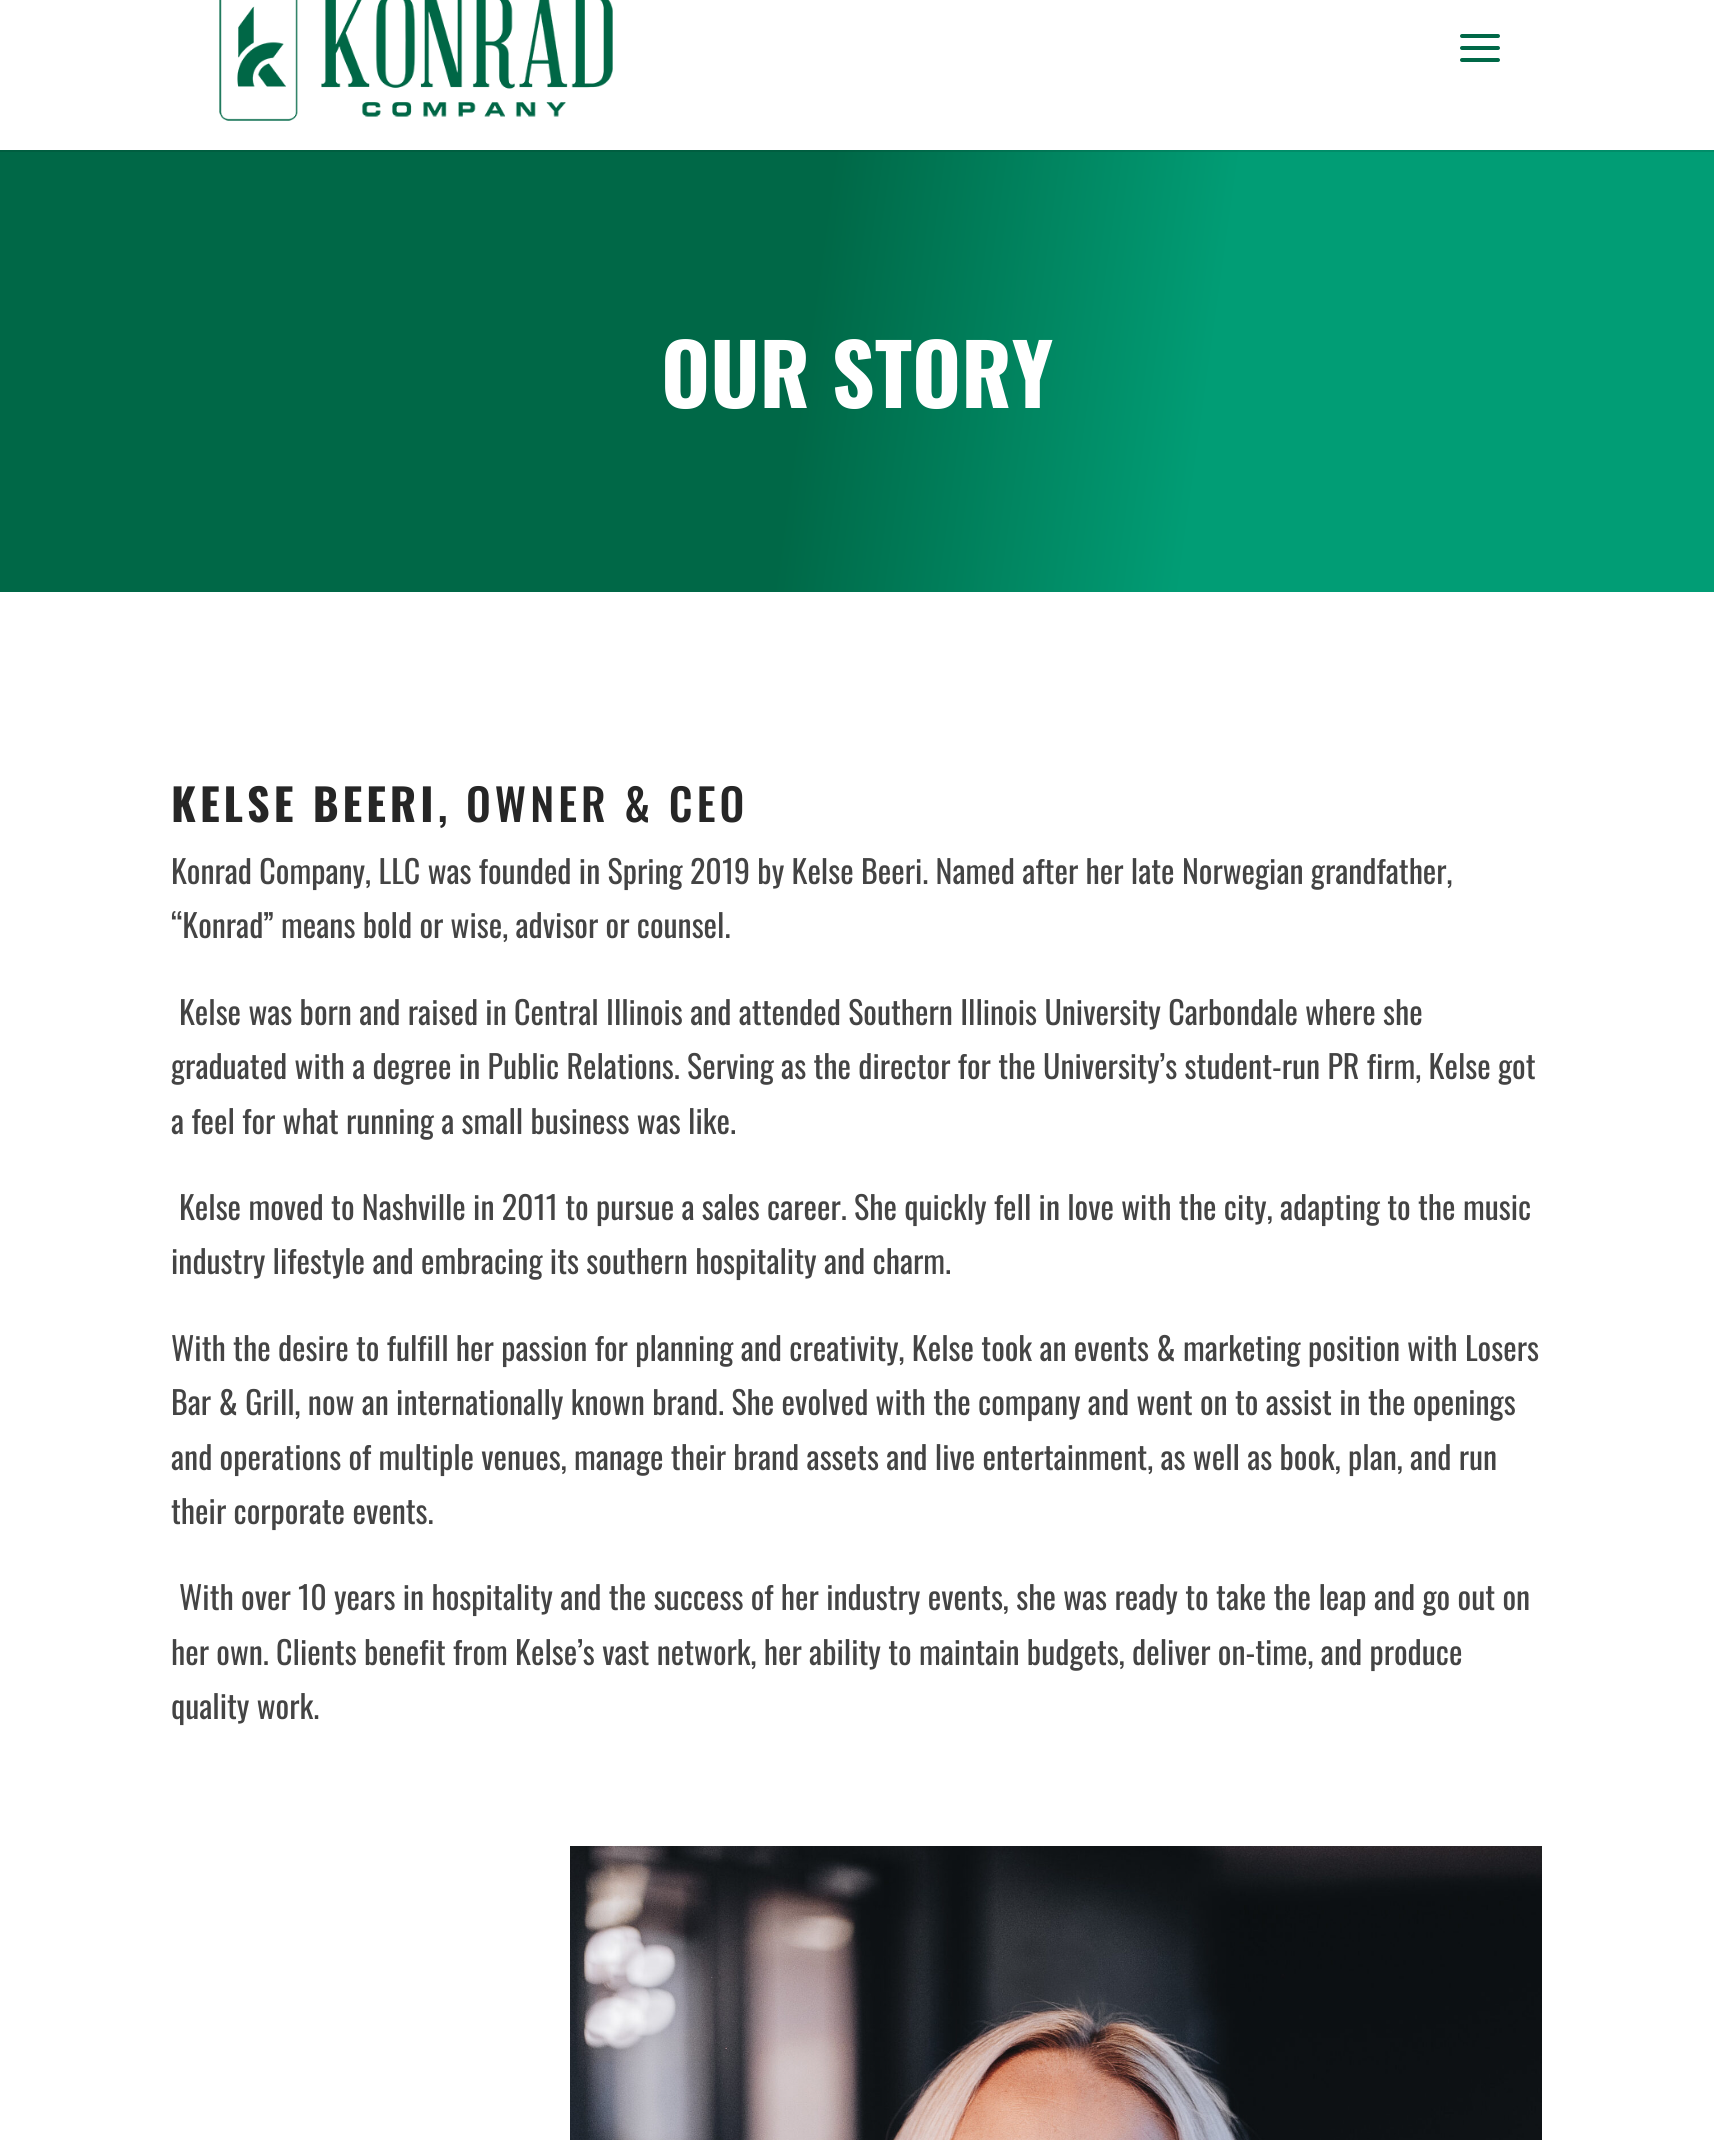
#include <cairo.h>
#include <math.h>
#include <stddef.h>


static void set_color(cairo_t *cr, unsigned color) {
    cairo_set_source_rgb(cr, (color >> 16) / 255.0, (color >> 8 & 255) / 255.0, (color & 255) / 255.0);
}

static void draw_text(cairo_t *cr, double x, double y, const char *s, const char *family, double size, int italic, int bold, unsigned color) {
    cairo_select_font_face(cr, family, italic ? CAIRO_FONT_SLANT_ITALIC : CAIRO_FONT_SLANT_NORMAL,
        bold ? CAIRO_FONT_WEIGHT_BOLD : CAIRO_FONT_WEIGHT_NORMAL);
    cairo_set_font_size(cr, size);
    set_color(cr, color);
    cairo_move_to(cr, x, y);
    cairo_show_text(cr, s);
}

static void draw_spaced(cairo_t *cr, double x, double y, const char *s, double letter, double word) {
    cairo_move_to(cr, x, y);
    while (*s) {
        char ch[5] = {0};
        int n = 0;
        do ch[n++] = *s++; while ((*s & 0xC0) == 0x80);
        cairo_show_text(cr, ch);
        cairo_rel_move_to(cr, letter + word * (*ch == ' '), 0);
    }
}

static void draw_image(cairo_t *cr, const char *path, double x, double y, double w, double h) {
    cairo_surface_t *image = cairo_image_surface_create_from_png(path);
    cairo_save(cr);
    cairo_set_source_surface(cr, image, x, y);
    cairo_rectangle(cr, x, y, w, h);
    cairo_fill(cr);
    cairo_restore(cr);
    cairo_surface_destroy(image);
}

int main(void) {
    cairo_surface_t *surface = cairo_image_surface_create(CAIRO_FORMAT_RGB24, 1714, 2140);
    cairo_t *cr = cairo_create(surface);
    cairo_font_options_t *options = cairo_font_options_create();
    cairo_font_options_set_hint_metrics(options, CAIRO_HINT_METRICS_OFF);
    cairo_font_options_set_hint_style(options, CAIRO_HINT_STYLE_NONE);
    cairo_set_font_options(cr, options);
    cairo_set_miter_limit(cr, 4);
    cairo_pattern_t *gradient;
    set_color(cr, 0xFFFFFF);
    cairo_paint(cr);
    draw_image(cr, "assets/img1.png", 219, 0, 394, 121);
    draw_image(cr, "assets/img2.png", 1460, 34, 40, 28);
    gradient = cairo_pattern_create_linear(-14, 248, 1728, 492);
    cairo_pattern_add_color_stop_rgba(gradient, 0.47, 0, 0.408, 0.278, 1);
    cairo_pattern_add_color_stop_rgba(gradient, 0.7, 0.004, 0.616, 0.459, 1);
    cairo_set_source(cr, gradient);
    cairo_pattern_destroy(gradient);
    cairo_rectangle(cr, 0, 152, 1714, 440);
    cairo_fill(cr);
    gradient = cairo_pattern_create_linear(-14, 248, 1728, 492);
    cairo_pattern_add_color_stop_rgba(gradient, 0.47, 0, 0.369, 0.251, 1);
    cairo_pattern_add_color_stop_rgba(gradient, 0.7, 0.004, 0.553, 0.412, 1);
    cairo_set_source(cr, gradient);
    cairo_pattern_destroy(gradient);
    cairo_rectangle(cr, 0, 150, 1714, 2);
    cairo_fill(cr);
    draw_text(cr, 661, 408, "OUR STORY", "Oswald", 84, 0, 1, 0xFFFFFF);
    cairo_set_font_size(cr, 44);
    set_color(cr, 0x262626);
    draw_spaced(cr, 171, 822, "KELSE BEERI", 4, 0);
    cairo_select_font_face(cr, "Oswald Medium", CAIRO_FONT_SLANT_NORMAL, CAIRO_FONT_WEIGHT_NORMAL);
    draw_spaced(cr, 438, 822, ", OWNER & CEO", 4, 0);
    draw_text(cr, 171, 884, "Konrad Company, LLC was founded in Spring 2019 by Kelse Beeri. Named after her late Norwegian grandfather,", "Oswald", 32, 0, 0, 0x444444);
    draw_text(cr, 171, 938, "“Konrad” means bold or wise, advisor or counsel.", "Oswald", 32, 0, 0, 0x444444);
    draw_text(cr, 179, 1025, "Kelse was born and raised in Central Illinois and attended Southern Illinois University Carbondale where she", "Oswald", 32, 0, 0, 0x444444);
    draw_text(cr, 171, 1079, "graduated with a degree in Public Relations. Serving as the director for the University’s student-run PR firm, Kelse got", "Oswald", 32, 0, 0, 0x444444);
    draw_text(cr, 171, 1134, "a feel for what running a small business was like.", "Oswald", 32, 0, 0, 0x444444);
    draw_text(cr, 179, 1220, "Kelse moved to Nashville in 2011 to pursue a sales career. She quickly fell in love with the city, adapting to the music", "Oswald", 32, 0, 0, 0x444444);
    draw_text(cr, 171, 1274, "industry lifestyle and embracing its southern hospitality and charm.", "Oswald", 32, 0, 0, 0x444444);
    draw_text(cr, 171, 1361, "With the desire to fulfill her passion for planning and creativity, Kelse took an events & marketing position with Losers", "Oswald", 32, 0, 0, 0x444444);
    draw_text(cr, 171, 1415, "Bar & Grill, now an internationally known brand. She evolved with the company and went on to assist in the openings", "Oswald", 32, 0, 0, 0x444444);
    draw_text(cr, 171, 1470, "and operations of multiple venues, manage their brand assets and live entertainment, as well as book, plan, and run", "Oswald", 32, 0, 0, 0x444444);
    draw_text(cr, 171, 1524, "their corporate events.", "Oswald", 32, 0, 0, 0x444444);
    draw_text(cr, 179, 1610, "With over 10 years in hospitality and the success of her industry events, she was ready to take the leap and go out on", "Oswald", 32, 0, 0, 0x444444);
    draw_text(cr, 171, 1665, "her own. Clients benefit from Kelse’s vast network, her ability to maintain budgets, deliver on-time, and produce", "Oswald", 32, 0, 0, 0x444444);
    draw_text(cr, 171, 1719, "quality work.", "Oswald", 32, 0, 0, 0x444444);
    draw_image(cr, "assets/img3.png", 570, 1846, 972, 294);
    cairo_surface_write_to_png(surface, "output.png");
    cairo_font_options_destroy(options);
    cairo_destroy(cr);
    cairo_surface_destroy(surface);
    return 0;
}
